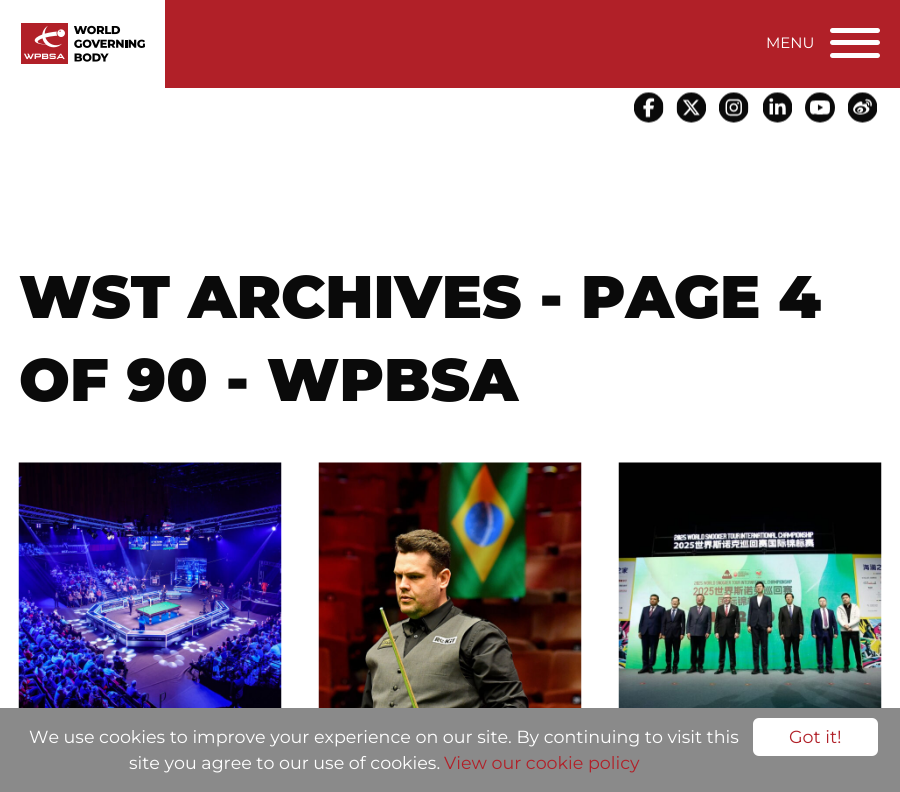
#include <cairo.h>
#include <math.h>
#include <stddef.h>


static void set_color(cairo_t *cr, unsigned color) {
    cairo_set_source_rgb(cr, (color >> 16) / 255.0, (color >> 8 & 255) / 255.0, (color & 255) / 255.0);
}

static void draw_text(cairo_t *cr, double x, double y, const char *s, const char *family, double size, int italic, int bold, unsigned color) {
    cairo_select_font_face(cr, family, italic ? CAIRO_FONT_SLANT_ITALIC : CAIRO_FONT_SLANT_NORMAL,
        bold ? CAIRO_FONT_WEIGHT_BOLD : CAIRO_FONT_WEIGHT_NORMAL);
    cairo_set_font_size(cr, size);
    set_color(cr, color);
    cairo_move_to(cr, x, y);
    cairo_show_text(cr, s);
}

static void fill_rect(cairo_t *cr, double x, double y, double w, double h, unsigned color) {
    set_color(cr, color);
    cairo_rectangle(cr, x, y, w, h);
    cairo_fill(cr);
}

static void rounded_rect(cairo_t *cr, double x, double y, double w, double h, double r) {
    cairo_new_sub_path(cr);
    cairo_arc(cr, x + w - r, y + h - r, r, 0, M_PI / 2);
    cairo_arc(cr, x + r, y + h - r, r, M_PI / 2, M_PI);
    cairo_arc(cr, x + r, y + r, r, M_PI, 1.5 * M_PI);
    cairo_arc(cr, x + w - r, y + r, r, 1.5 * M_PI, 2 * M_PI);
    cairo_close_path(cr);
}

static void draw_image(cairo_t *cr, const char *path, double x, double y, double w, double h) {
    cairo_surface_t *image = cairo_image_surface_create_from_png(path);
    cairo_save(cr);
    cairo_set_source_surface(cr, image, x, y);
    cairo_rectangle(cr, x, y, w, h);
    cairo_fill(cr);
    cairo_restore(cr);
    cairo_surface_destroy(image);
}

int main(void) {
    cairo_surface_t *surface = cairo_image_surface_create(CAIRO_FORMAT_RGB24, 900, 792);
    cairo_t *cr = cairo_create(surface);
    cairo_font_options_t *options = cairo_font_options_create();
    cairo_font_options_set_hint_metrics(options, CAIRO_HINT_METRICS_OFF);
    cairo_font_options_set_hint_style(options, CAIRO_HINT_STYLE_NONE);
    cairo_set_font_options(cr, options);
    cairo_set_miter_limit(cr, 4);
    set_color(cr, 0xFFFFFF);
    cairo_paint(cr);
    fill_rect(cr, 165, 0, 735, 88, 0xB12028);
    draw_image(cr, "assets/img1.png", 21, 23, 124, 41);
    draw_text(cr, 766, 48, "MENU", "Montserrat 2 Thin", 15, 0, 0, 0xFFFFFF);
    set_color(cr, 0xFEFEFE);
    rounded_rect(cr, 830, 40, 50, 5, 2.5);
    cairo_fill(cr);
    rounded_rect(cr, 830, 28, 50, 5, 2.5);
    cairo_fill(cr);
    rounded_rect(cr, 830, 53, 50, 5, 2.5);
    cairo_fill(cr);
    draw_image(cr, "assets/img2.png", 634, 92, 30, 31);
    draw_image(cr, "assets/img3.png", 676, 92, 30, 31);
    draw_image(cr, "assets/img4.png", 719, 92, 30, 31);
    draw_image(cr, "assets/img5.png", 763, 92, 29, 31);
    draw_image(cr, "assets/img6.png", 805, 92, 30, 31);
    draw_image(cr, "assets/img7.png", 848, 92, 29, 31);
    draw_text(cr, 19, 318, "WST ARCHIVES - PAGE 4", "Montserrat Thin", 60, 0, 0, 0x0A0A0A);
    draw_text(cr, 19, 401, "OF 90 - WPBSA", "Montserrat Thin", 60, 0, 0, 0x0A0A0A);
    draw_image(cr, "assets/img8.png", 18, 462, 264, 246);
    draw_image(cr, "assets/img9.png", 318, 462, 264, 246);
    draw_image(cr, "assets/img10.png", 618, 462, 264, 246);
    fill_rect(cr, 0, 708, 900, 84, 0x8A8A8A);
    draw_text(cr, 29, 743, "We use cookies to improve your experience on our site. By continuing to visit this", "Montserrat 2 Thin", 17.5, 0, 0, 0xFFFFFF);
    draw_text(cr, 129, 769, "site you agree to our use of cookies.", "Montserrat 2 Thin", 17.5, 0, 0, 0xFFFFFF);
    draw_text(cr, 444, 769, "View our cookie policy", "Montserrat 2 Thin", 17.5, 0, 0, 0xB12028);
    set_color(cr, 0xFFFFFF);
    rounded_rect(cr, 753, 718, 125, 38, 6);
    cairo_fill(cr);
    draw_text(cr, 789, 743, "Got it!", "Montserrat 2 Thin", 17.5, 0, 0, 0xB12028);
    cairo_surface_write_to_png(surface, "output.png");
    cairo_font_options_destroy(options);
    cairo_destroy(cr);
    cairo_surface_destroy(surface);
    return 0;
}
